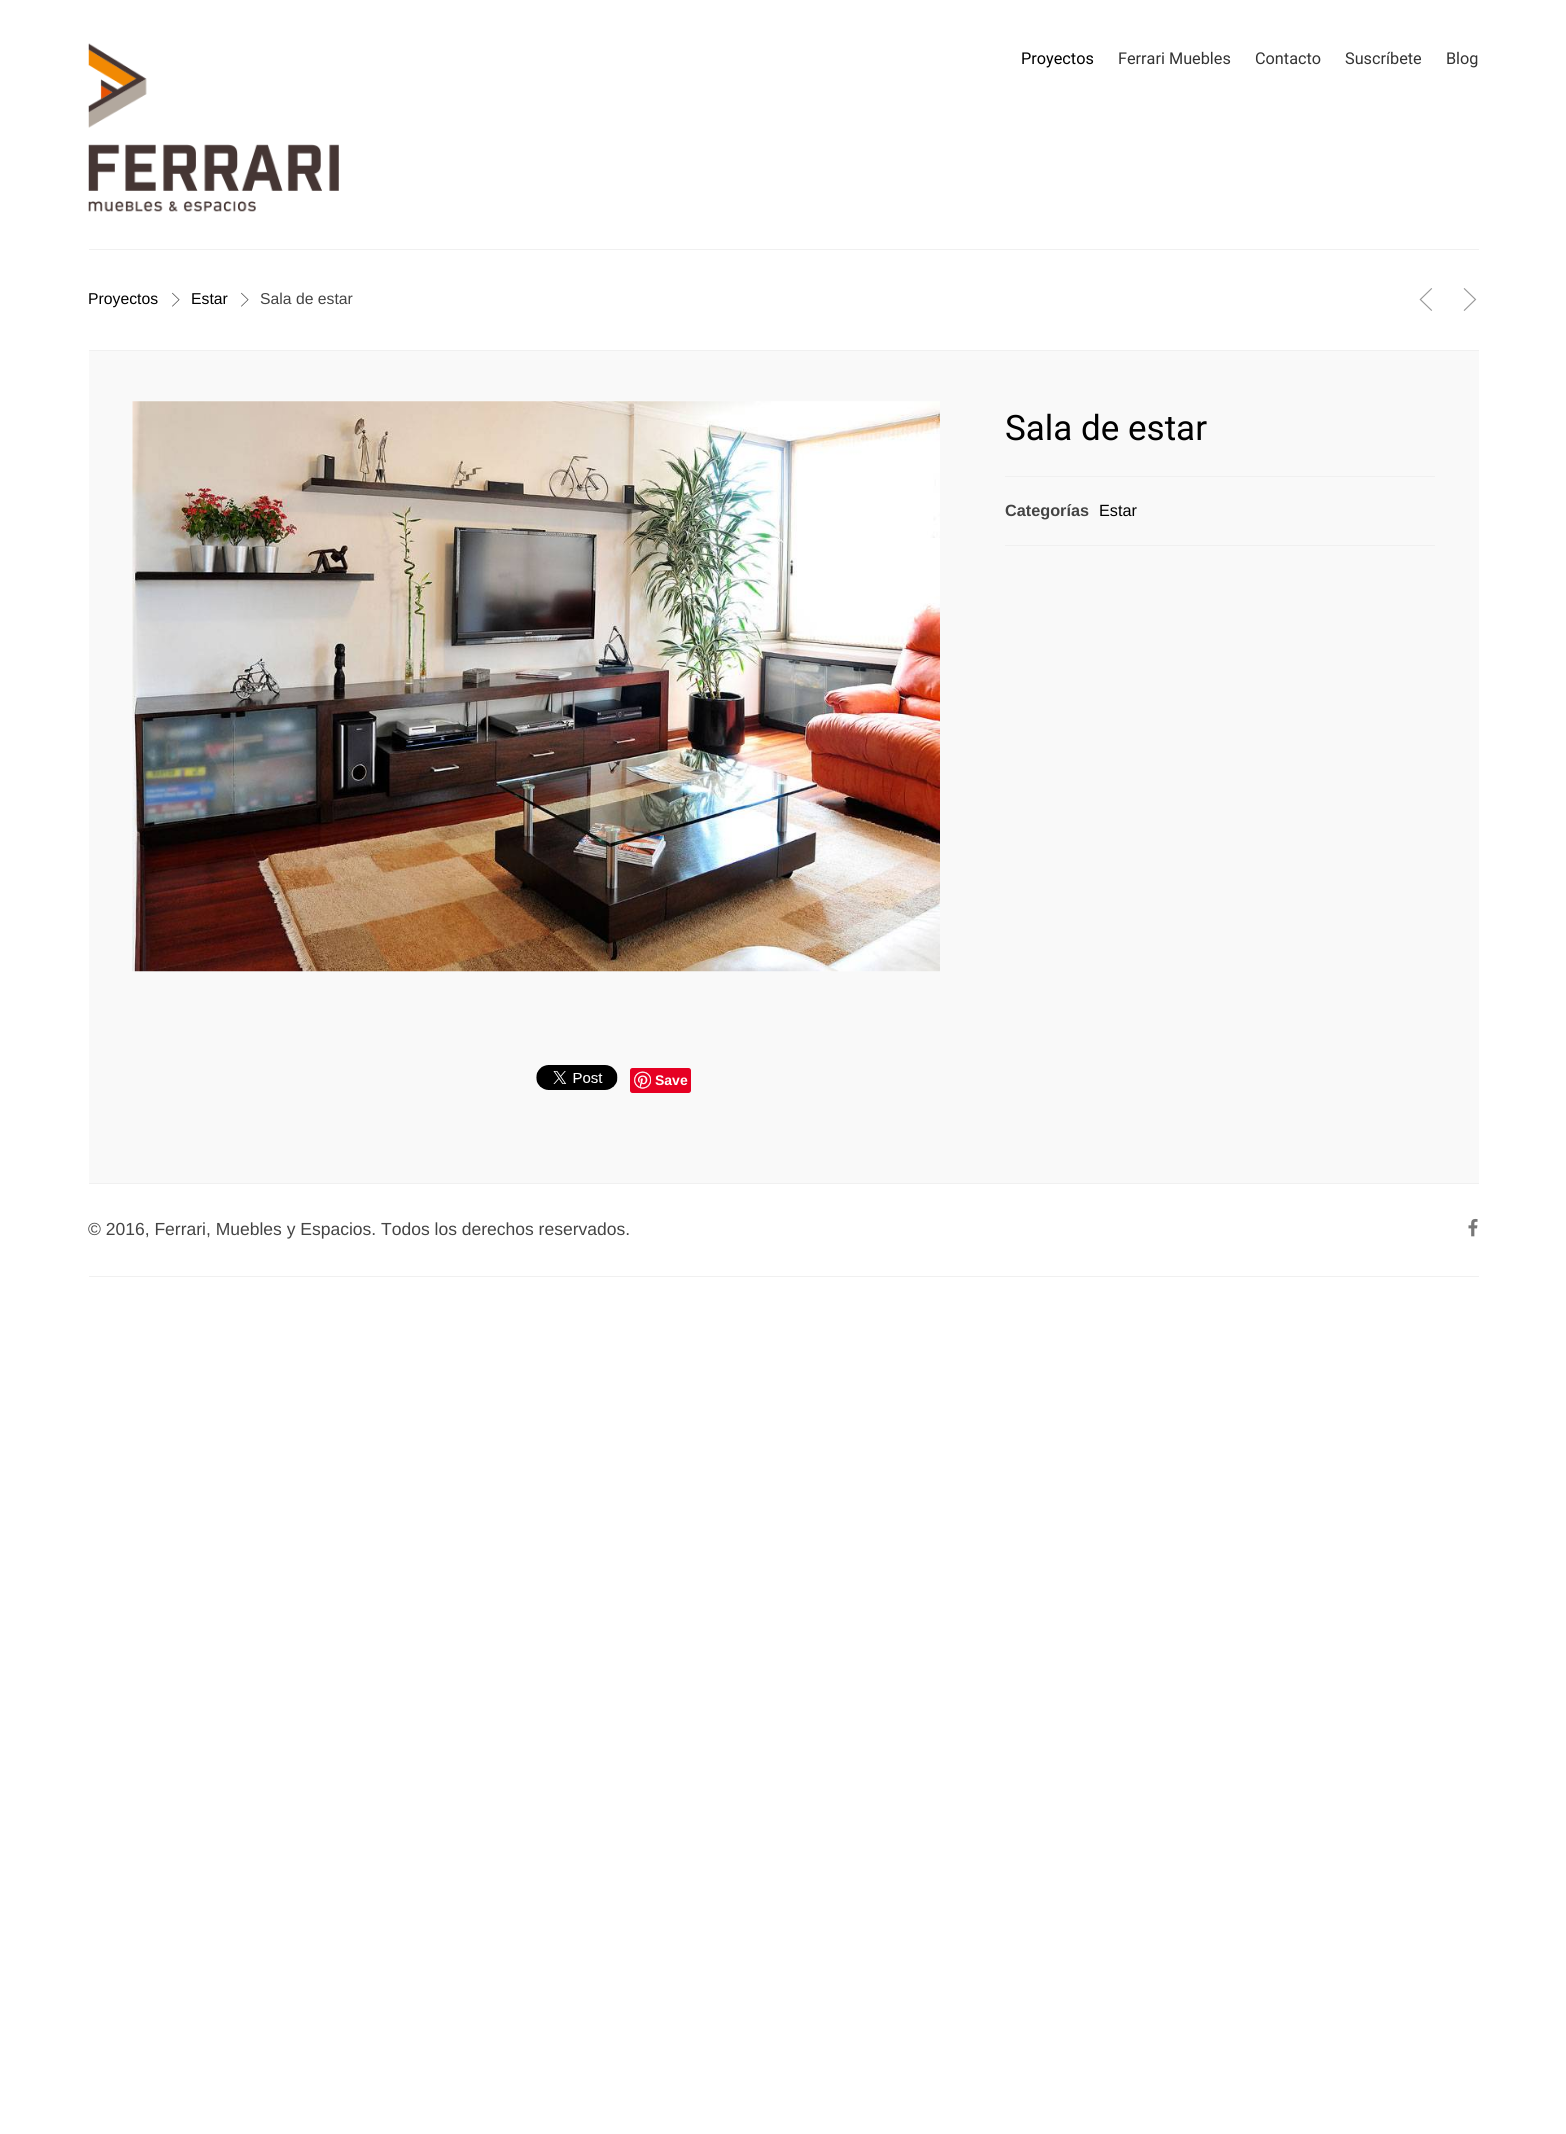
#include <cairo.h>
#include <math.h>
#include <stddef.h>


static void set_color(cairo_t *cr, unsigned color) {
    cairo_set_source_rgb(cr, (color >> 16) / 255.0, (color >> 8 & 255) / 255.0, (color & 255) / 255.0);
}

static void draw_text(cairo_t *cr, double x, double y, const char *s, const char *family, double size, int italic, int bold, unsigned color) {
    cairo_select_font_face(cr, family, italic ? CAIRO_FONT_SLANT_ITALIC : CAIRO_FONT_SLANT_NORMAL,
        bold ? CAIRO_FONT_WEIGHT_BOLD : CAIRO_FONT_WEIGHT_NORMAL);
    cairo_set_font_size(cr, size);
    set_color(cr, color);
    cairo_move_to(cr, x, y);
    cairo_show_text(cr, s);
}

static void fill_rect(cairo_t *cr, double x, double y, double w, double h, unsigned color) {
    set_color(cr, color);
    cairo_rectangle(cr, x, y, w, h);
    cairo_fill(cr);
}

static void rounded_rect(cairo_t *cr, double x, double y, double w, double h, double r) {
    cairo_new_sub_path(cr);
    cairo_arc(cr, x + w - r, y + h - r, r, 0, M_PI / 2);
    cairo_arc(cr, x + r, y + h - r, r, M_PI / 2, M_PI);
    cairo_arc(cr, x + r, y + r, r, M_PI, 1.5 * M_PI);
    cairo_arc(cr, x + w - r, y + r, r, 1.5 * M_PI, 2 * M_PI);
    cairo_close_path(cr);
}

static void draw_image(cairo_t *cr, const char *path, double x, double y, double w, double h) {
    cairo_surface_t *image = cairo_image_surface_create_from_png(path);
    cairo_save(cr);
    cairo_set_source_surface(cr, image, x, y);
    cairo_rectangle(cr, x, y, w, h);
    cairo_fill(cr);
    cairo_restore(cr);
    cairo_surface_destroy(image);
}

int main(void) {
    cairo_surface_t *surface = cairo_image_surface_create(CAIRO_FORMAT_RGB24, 1566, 2134);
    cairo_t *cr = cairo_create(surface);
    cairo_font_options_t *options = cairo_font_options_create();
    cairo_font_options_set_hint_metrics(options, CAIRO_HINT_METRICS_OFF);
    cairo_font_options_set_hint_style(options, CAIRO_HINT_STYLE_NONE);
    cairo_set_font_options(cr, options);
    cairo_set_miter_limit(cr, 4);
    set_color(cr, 0xFFFFFF);
    cairo_paint(cr);
    fill_rect(cr, 89, 249, 1390, 1, 0xF0F0F0);
    draw_image(cr, "assets/img1.png", 88, 43, 251, 169);
    draw_text(cr, 1021, 64, "Proyectos", "Roboto", 16.25, 0, 0, 0x000000);
    draw_text(cr, 1118, 64, "Ferrari Muebles", "Roboto", 16.25, 0, 0, 0x333333);
    draw_text(cr, 1255, 64, "Contacto", "Roboto", 16.25, 0, 0, 0x333333);
    draw_text(cr, 1345, 64, "Suscríbete", "Roboto", 16.25, 0, 0, 0x333333);
    draw_text(cr, 1446, 64, "Blog", "Roboto", 16.25, 0, 0, 0x333333);
    fill_rect(cr, 89, 350, 1390, 1, 0xF0F0F0);
    draw_text(cr, 88, 304, "Proyectos", "Liberation Sans", 15.75, 0, 0, 0x000000);
    draw_text(cr, 171, 309, ">", "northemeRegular", 30, 0, 0, 0x444444);
    draw_text(cr, 191, 304, "Estar", "Liberation Sans", 15.75, 0, 0, 0x000000);
    draw_text(cr, 240, 309, ">", "northemeRegular", 30, 0, 0, 0x444444);
    draw_text(cr, 260, 304, "Sala de estar", "Liberation Sans", 15.75, 0, 0, 0x444444);
    draw_text(cr, 1418, 315, "<", "northemeRegular", 50, 0, 0, 0x999999);
    draw_text(cr, 1462, 315, ">", "northemeRegular", 50, 0, 0, 0x999999);
    fill_rect(cr, 89, 351, 1390, 832, 0xF9F9F9);
    draw_text(cr, 1005, 440, "Sala de estar", "Roboto", 35, 0, 0, 0x000000);
    fill_rect(cr, 1005, 476, 430, 1, 0xF0F0F0);
    fill_rect(cr, 1005, 545, 430, 1, 0xF0F0F0);
    draw_text(cr, 1005, 516, "Categorías", "Liberation Sans", 16.25, 0, 1, 0x444444);
    draw_text(cr, 1099, 516, "Estar", "Liberation Sans", 16.25, 0, 0, 0x000000);
    draw_image(cr, "assets/img2.png", 132, 401, 808, 571);
    draw_image(cr, "assets/img3.png", 536, 1065, 82, 25);
    set_color(cr, 0xE60023);
    rounded_rect(cr, 630, 1068, 61, 25, 2.5);
    cairo_fill(cr);
    draw_image(cr, "assets/img4.png", 634, 1071, 17, 18);
    draw_text(cr, 655, 1085, "Save", "Liberation Sans", 14, 0, 1, 0xFFFFFF);
    fill_rect(cr, 89, 1183, 1390, 1, 0xF0F0F0);
    fill_rect(cr, 89, 1276, 1390, 1, 0xF0F0F0);
    draw_text(cr, 88, 1235, "© 2016, Ferrari, Muebles y Espacios. Todos los derechos reservados.", "Liberation Sans", 17.5, 0, 0, 0x444444);
    draw_image(cr, "assets/img5.png", 1468, 1218, 10, 19);
    cairo_surface_write_to_png(surface, "output.png");
    cairo_font_options_destroy(options);
    cairo_destroy(cr);
    cairo_surface_destroy(surface);
    return 0;
}
